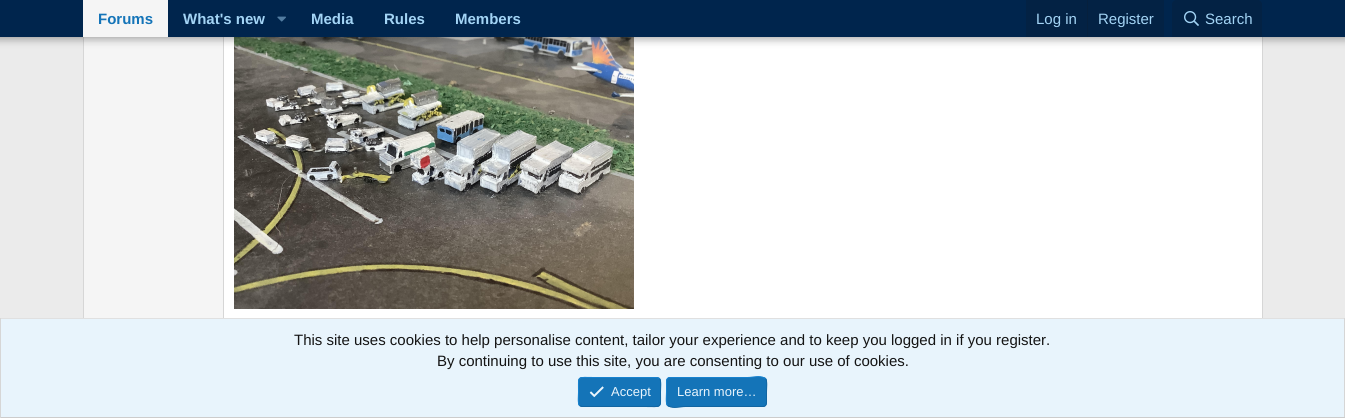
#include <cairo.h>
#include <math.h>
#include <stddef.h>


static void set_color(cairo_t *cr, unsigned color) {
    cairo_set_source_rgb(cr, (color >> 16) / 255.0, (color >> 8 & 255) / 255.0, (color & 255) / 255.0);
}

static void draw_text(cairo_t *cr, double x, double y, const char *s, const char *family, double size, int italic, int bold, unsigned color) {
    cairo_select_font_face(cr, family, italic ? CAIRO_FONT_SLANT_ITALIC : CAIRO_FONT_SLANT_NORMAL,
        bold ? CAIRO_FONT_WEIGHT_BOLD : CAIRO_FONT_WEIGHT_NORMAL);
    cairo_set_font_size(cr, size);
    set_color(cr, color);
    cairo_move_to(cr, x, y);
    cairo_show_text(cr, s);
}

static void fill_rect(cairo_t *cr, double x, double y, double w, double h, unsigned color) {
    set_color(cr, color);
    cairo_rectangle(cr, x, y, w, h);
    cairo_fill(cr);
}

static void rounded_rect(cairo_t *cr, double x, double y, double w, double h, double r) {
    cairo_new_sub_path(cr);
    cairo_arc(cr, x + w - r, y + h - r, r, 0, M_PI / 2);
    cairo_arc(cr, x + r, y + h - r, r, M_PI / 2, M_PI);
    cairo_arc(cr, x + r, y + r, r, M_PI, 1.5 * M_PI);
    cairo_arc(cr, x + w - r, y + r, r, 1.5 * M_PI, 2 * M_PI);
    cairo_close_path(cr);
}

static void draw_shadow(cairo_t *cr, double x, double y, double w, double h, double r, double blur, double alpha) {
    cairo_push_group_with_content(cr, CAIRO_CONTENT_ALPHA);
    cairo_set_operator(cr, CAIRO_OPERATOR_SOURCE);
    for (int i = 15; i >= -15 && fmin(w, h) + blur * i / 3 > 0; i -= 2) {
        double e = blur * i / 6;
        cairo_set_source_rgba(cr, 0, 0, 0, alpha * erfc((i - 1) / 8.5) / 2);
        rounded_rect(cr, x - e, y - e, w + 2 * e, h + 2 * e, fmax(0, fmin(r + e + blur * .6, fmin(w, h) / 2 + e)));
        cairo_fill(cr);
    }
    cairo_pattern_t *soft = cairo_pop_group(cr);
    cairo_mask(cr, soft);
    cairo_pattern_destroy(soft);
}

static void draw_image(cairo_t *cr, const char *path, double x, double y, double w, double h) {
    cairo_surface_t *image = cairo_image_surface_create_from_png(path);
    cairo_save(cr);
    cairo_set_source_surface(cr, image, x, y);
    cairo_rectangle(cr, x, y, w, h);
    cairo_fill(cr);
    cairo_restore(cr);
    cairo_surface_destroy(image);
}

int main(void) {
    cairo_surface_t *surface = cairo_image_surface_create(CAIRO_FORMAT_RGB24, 1345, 418);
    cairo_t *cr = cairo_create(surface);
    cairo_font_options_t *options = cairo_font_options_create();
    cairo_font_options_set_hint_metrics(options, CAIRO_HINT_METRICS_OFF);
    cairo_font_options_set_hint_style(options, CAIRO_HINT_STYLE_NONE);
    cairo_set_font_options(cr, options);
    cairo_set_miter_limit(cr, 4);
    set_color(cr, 0xEBEBEB);
    cairo_paint(cr);
    fill_rect(cr, 224, 37, 1038, 281, 0xFFFFFF);
    cairo_new_path(cr);
    cairo_move_to(cr, 1261.5, -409.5);
    cairo_line_to(cr, 1262.5, -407);
    cairo_line_to(cr, 1262.5, 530);
    cairo_line_to(cr, 1261.5, 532.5);
    set_color(cr, 0xD6D6D6);
    cairo_set_line_width(cr, 1);
    cairo_stroke(cr);
    cairo_new_path(cr);
    cairo_move_to(cr, 84.5, 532.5);
    cairo_line_to(cr, 83.5, 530);
    cairo_line_to(cr, 83.5, -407);
    cairo_line_to(cr, 84.5, -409.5);
    cairo_stroke(cr);
    fill_rect(cr, 84, 37, 139, 281, 0xF5F5F5);
    fill_rect(cr, 223, 37, 1, 281, 0xD6D6D6);
    draw_image(cr, "assets/img1.png", 234, 37, 400, 272);
    set_color(cr, 0x000000);
    draw_shadow(cr, -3, -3, 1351, 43, 0, 4, 0.3);
    fill_rect(cr, 0, 0, 1345, 37, 0x00254D);
    fill_rect(cr, 83, 0, 85, 37, 0xF5F5F5);
    draw_text(cr, 98, 24, "Forums", "Liberation Sans", 15, 0, 1, 0x1474B8);
    draw_text(cr, 183, 24, "What's new", "Liberation Sans", 15, 0, 1, 0xA3D4F5);
    draw_image(cr, "assets/img2.png", 277, 16, 9, 6);
    draw_text(cr, 311, 24, "Media", "Liberation Sans", 15, 0, 1, 0xA3D4F5);
    draw_text(cr, 384, 24, "Rules", "Liberation Sans", 15, 0, 1, 0xA3D4F5);
    draw_text(cr, 455, 24, "Members", "Liberation Sans", 15, 0, 1, 0xA3D4F5);
    fill_rect(cr, 1026, 0, 138, 37, 0x032244);
    draw_text(cr, 1036, 24, "Log in", "Liberation Sans", 15, 0, 0, 0xA3D4F5);
    fill_rect(cr, 1087, 0, 1, 37, 0x06203D);
    draw_text(cr, 1098, 24, "Register", "Liberation Sans", 15, 0, 0, 0xA3D4F5);
    set_color(cr, 0x032244);
    cairo_new_path(cr);
    cairo_move_to(cr, 1176, 0);
    cairo_line_to(cr, 1258, 0);
    cairo_curve_to(cr, 1260, 0, 1262, 2, 1262, 4);
    cairo_line_to(cr, 1262, 37);
    cairo_line_to(cr, 1172, 37);
    cairo_line_to(cr, 1172, 4);
    cairo_curve_to(cr, 1172, 2, 1174, 0, 1176, 0);
    cairo_close_path(cr);
    cairo_fill(cr);
    draw_image(cr, "assets/img3.png", 1184, 11, 15, 15);
    draw_text(cr, 1205, 24, "Search", "Liberation Sans", 15, 0, 0, 0xA3D4F5);
    fill_rect(cr, 1, 319, 1343, 98, 0xE8F4FC);
    fill_rect(cr, 0, 318, 1345, 1, 0xE0E0E0);
    fill_rect(cr, 1344, 318, 1, 100, 0xD6D6D6);
    fill_rect(cr, 0, 417, 1345, 1, 0xCCCCCC);
    fill_rect(cr, 0, 318, 1, 100, 0xD6D6D6);
    draw_text(cr, 294, 345, "This site uses cookies to help personalise content, tailor your experience and to keep you logged in if you register.", "Liberation Sans", 15, 0, 0, 0x141414);
    draw_text(cr, 437, 366, "By continuing to use this site, you are consenting to our use of cookies.", "Liberation Sans", 15, 0, 0, 0x141414);
    set_color(cr, 0x1474B8);
    rounded_rect(cr, 578, 377, 83, 30, 4);
    cairo_fill(cr);
    cairo_new_path(cr);
    cairo_move_to(cr, 659.5, 378.5);
    cairo_curve_to(cr, 661.5, 380.5, 660.5, 389, 660.5, 392);
    cairo_curve_to(cr, 660.5, 409, 662.5, 406.5, 644.5, 406.5);
    cairo_line_to(cr, 582, 406.5);
    cairo_line_to(cr, 579.5, 405.5);
    set_color(cr, 0x1265A1);
    cairo_stroke(cr);
    cairo_new_path(cr);
    cairo_move_to(cr, 579.5, 405.5);
    cairo_curve_to(cr, 577.5, 403.5, 578.5, 395, 578.5, 392);
    cairo_curve_to(cr, 578.5, 375, 576.5, 377.5, 594.5, 377.5);
    cairo_line_to(cr, 657, 377.5);
    cairo_line_to(cr, 659.5, 378.5);
    set_color(cr, 0x1782CF);
    cairo_stroke(cr);
    draw_image(cr, "assets/img4.png", 589, 386, 15, 12);
    draw_text(cr, 611, 396, "Accept", "Liberation Sans", 13, 0, 0, 0xE8F4FC);
    set_color(cr, 0x1474B8);
    rounded_rect(cr, 666, 377, 101, 30, 4);
    cairo_fill(cr);
    cairo_new_path(cr);
    cairo_move_to(cr, 765.5, 378.5);
    cairo_curve_to(cr, 767.5, 380.5, 766.5, 389, 766.5, 392);
    cairo_line_to(cr, 766.5, 399.5);
    cairo_curve_to(cr, 766.5, 402, 767, 406.5, 763, 406.5);
    cairo_line_to(cr, 685.5, 406.5);
    cairo_curve_to(cr, 680, 406.5, 673.5, 409, 668.5, 406);
    cairo_line_to(cr, 667.5, 405.5);
    set_color(cr, 0x1265A1);
    cairo_stroke(cr);
    cairo_new_path(cr);
    cairo_move_to(cr, 667.5, 405.5);
    cairo_curve_to(cr, 665.5, 403.5, 666.5, 395, 666.5, 392);
    cairo_line_to(cr, 666.5, 384.5);
    cairo_curve_to(cr, 666.5, 382, 666, 377.5, 670, 377.5);
    cairo_line_to(cr, 747.5, 377.5);
    cairo_curve_to(cr, 753, 377.5, 759.5, 375, 764.5, 378);
    cairo_line_to(cr, 765.5, 378.5);
    set_color(cr, 0x1782CF);
    cairo_stroke(cr);
    draw_text(cr, 677, 396, "Learn more…", "Liberation Sans", 13, 0, 0, 0xE8F4FC);
    cairo_surface_write_to_png(surface, "output.png");
    cairo_font_options_destroy(options);
    cairo_destroy(cr);
    cairo_surface_destroy(surface);
    return 0;
}
